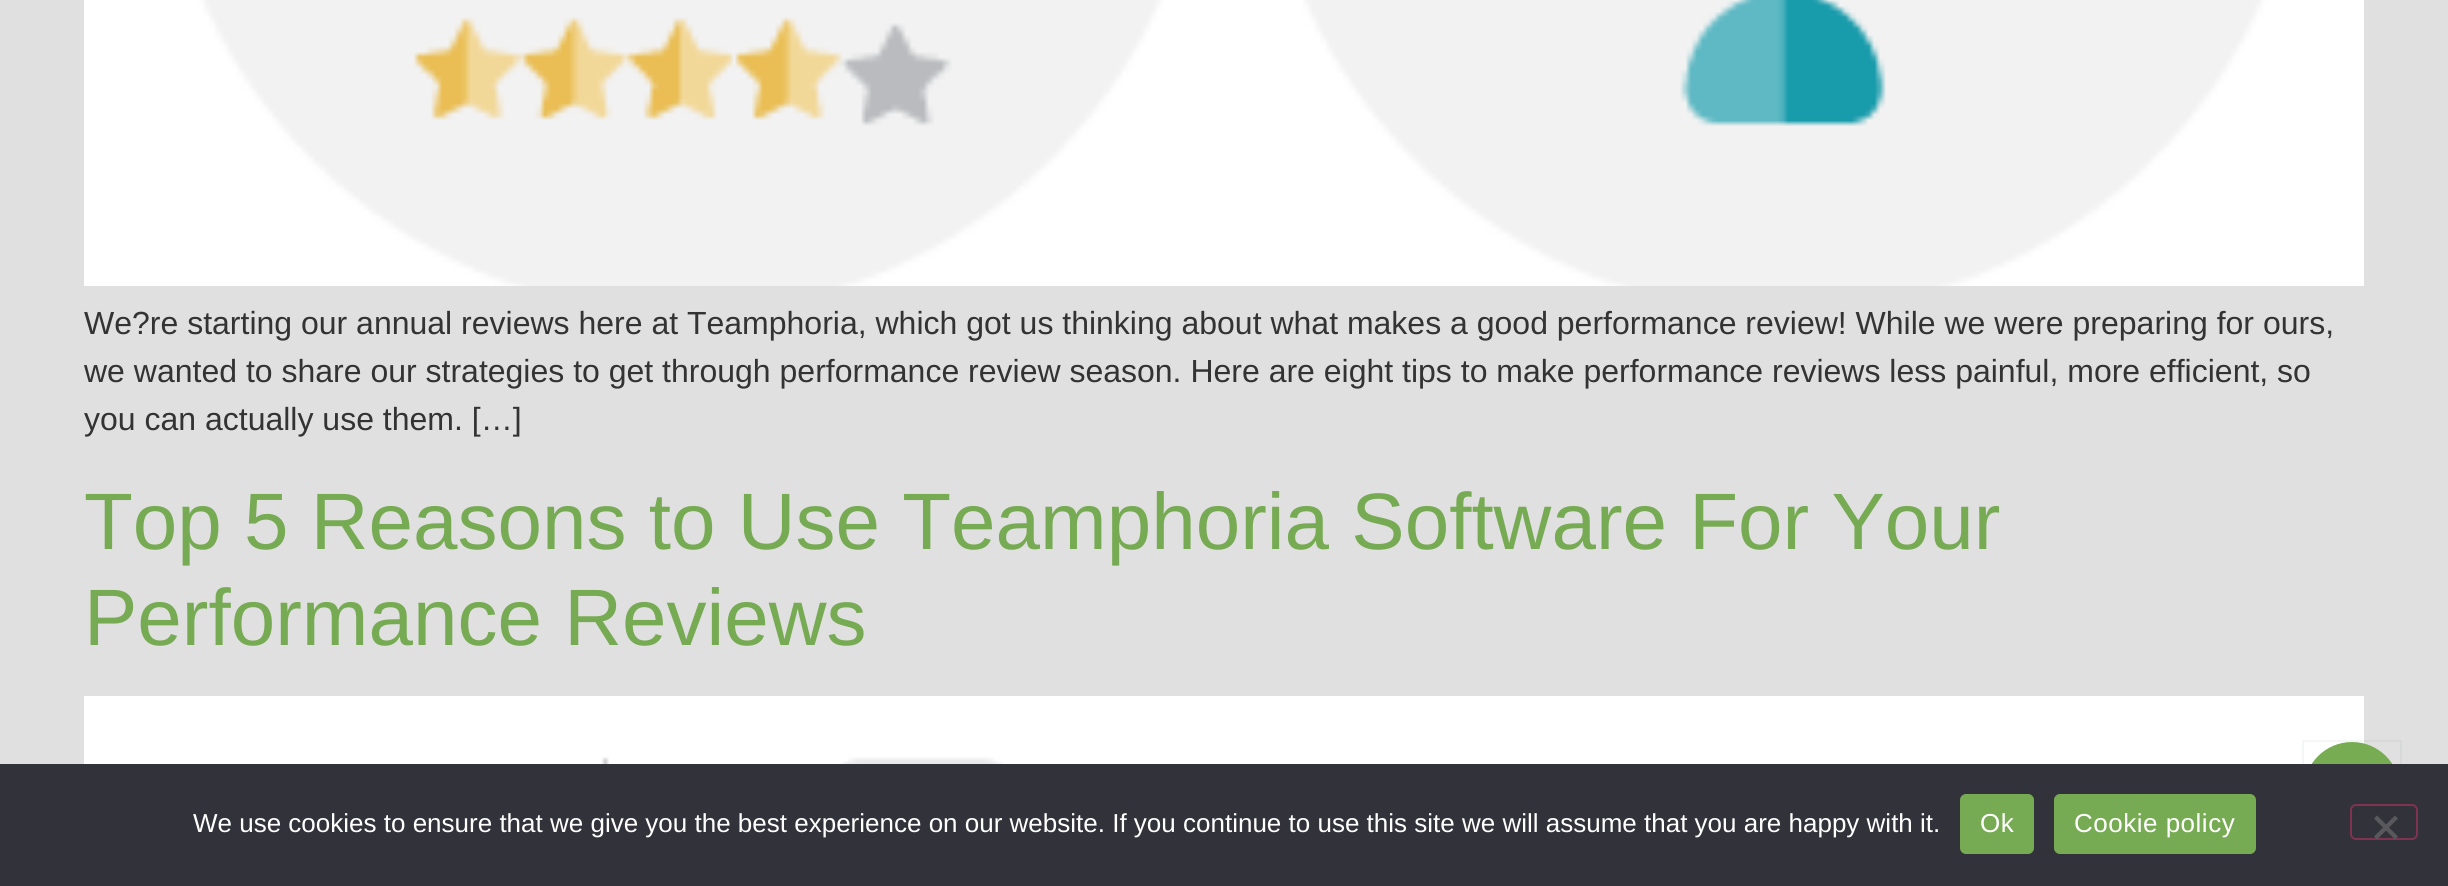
#include <cairo.h>
#include <math.h>
#include <stddef.h>


static void set_color(cairo_t *cr, unsigned color) {
    cairo_set_source_rgb(cr, (color >> 16) / 255.0, (color >> 8 & 255) / 255.0, (color & 255) / 255.0);
}

static void draw_text(cairo_t *cr, double x, double y, const char *s, const char *family, double size, int italic, int bold, unsigned color) {
    cairo_select_font_face(cr, family, italic ? CAIRO_FONT_SLANT_ITALIC : CAIRO_FONT_SLANT_NORMAL,
        bold ? CAIRO_FONT_WEIGHT_BOLD : CAIRO_FONT_WEIGHT_NORMAL);
    cairo_set_font_size(cr, size);
    set_color(cr, color);
    cairo_move_to(cr, x, y);
    cairo_show_text(cr, s);
}

static void draw_spaced(cairo_t *cr, double x, double y, const char *s, double letter, double word) {
    cairo_move_to(cr, x, y);
    while (*s) {
        char ch[5] = {0};
        int n = 0;
        do ch[n++] = *s++; while ((*s & 0xC0) == 0x80);
        cairo_show_text(cr, ch);
        cairo_rel_move_to(cr, letter + word * (*ch == ' '), 0);
    }
}

static void fill_rect(cairo_t *cr, double x, double y, double w, double h, unsigned color) {
    set_color(cr, color);
    cairo_rectangle(cr, x, y, w, h);
    cairo_fill(cr);
}

static void rounded_rect(cairo_t *cr, double x, double y, double w, double h, double r) {
    cairo_new_sub_path(cr);
    cairo_arc(cr, x + w - r, y + h - r, r, 0, M_PI / 2);
    cairo_arc(cr, x + r, y + h - r, r, M_PI / 2, M_PI);
    cairo_arc(cr, x + r, y + r, r, M_PI, 1.5 * M_PI);
    cairo_arc(cr, x + w - r, y + r, r, 1.5 * M_PI, 2 * M_PI);
    cairo_close_path(cr);
}

static void draw_image(cairo_t *cr, const char *path, double x, double y, double w, double h) {
    cairo_surface_t *image = cairo_image_surface_create_from_png(path);
    cairo_save(cr);
    cairo_set_source_surface(cr, image, x, y);
    cairo_rectangle(cr, x, y, w, h);
    cairo_fill(cr);
    cairo_restore(cr);
    cairo_surface_destroy(image);
}

int main(void) {
    cairo_surface_t *surface = cairo_image_surface_create(CAIRO_FORMAT_RGB24, 2448, 886);
    cairo_t *cr = cairo_create(surface);
    cairo_font_options_t *options = cairo_font_options_create();
    cairo_font_options_set_hint_metrics(options, CAIRO_HINT_METRICS_OFF);
    cairo_font_options_set_hint_style(options, CAIRO_HINT_STYLE_NONE);
    cairo_set_font_options(cr, options);
    cairo_set_miter_limit(cr, 4);
    set_color(cr, 0xE0E0E0);
    cairo_paint(cr);
    draw_image(cr, "assets/img1.png", 84, 0, 2280, 286);
    draw_text(cr, 84, 334, "We?re starting our annual reviews here at Teamphoria, which got us thinking about what makes a good performance review! While we were preparing for ours,", "Liberation Sans", 32, 0, 0, 0x333333);
    draw_text(cr, 84, 382, "we wanted to share our strategies to get through performance review season. Here are eight tips to make performance reviews less painful, more efficient, so", "Liberation Sans", 32, 0, 0, 0x333333);
    draw_text(cr, 84, 430, "you can actually use them. […]", "Liberation Sans", 32, 0, 0, 0x333333);
    draw_text(cr, 84, 549, "Top 5 Reasons to Use Teamphoria Software For Your", "Liberation Sans", 80, 0, 0, 0x77AB53);
    draw_text(cr, 84, 645, "Performance Reviews", "Liberation Sans", 80, 0, 0, 0x77AB53);
    draw_image(cr, "assets/img2.png", 84, 696, 2280, 68);
    cairo_rectangle(cr, 2303, 741, 98, 98);
    cairo_set_source_rgba(cr, 0.086, 0.102, 0.118, 0.04);
    cairo_stroke(cr);
    set_color(cr, 0x77AC53);
    cairo_arc(cr, 2352, 790, 48, 0, 2 * M_PI);
    cairo_fill(cr);
    fill_rect(cr, 0, 764, 2448, 122, 0x32323A);
    draw_text(cr, 193, 832, "We use cookies to ensure that we give you the best experience on our website. If you continue to use this site we will assume that you are happy with it.", "Liberation Sans", 26, 0, 0, 0xFFFFFF);
    set_color(cr, 0x77AB53);
    rounded_rect(cr, 1960, 794, 74, 60, 6);
    cairo_fill(cr);
    set_color(cr, 0xFFFFFF);
    draw_spaced(cr, 1980, 832, "Ok", 0.5, 0);
    set_color(cr, 0x77AB53);
    rounded_rect(cr, 2054, 794, 202, 60, 6);
    cairo_fill(cr);
    set_color(cr, 0xFFFFFF);
    draw_spaced(cr, 2074, 832, "Cookie policy", 0.5, 0);
    rounded_rect(cr, 2351, 805, 66, 34, 5);
    set_color(cr, 0x7F3350);
    cairo_stroke(cr);
    set_color(cr, 0x59595D);
    cairo_new_path(cr);
    cairo_move_to(cr, 2395, 815.5);
    cairo_line_to(cr, 2398, 818.5);
    cairo_line_to(cr, 2377, 839.5);
    cairo_line_to(cr, 2374, 836.5);
    cairo_close_path(cr);
    cairo_fill(cr);
    cairo_new_path(cr);
    cairo_move_to(cr, 2374, 818.5);
    cairo_line_to(cr, 2377, 815.5);
    cairo_line_to(cr, 2398, 836.5);
    cairo_line_to(cr, 2395, 839.5);
    cairo_close_path(cr);
    cairo_fill(cr);
    cairo_surface_write_to_png(surface, "output.png");
    cairo_font_options_destroy(options);
    cairo_destroy(cr);
    cairo_surface_destroy(surface);
    return 0;
}
